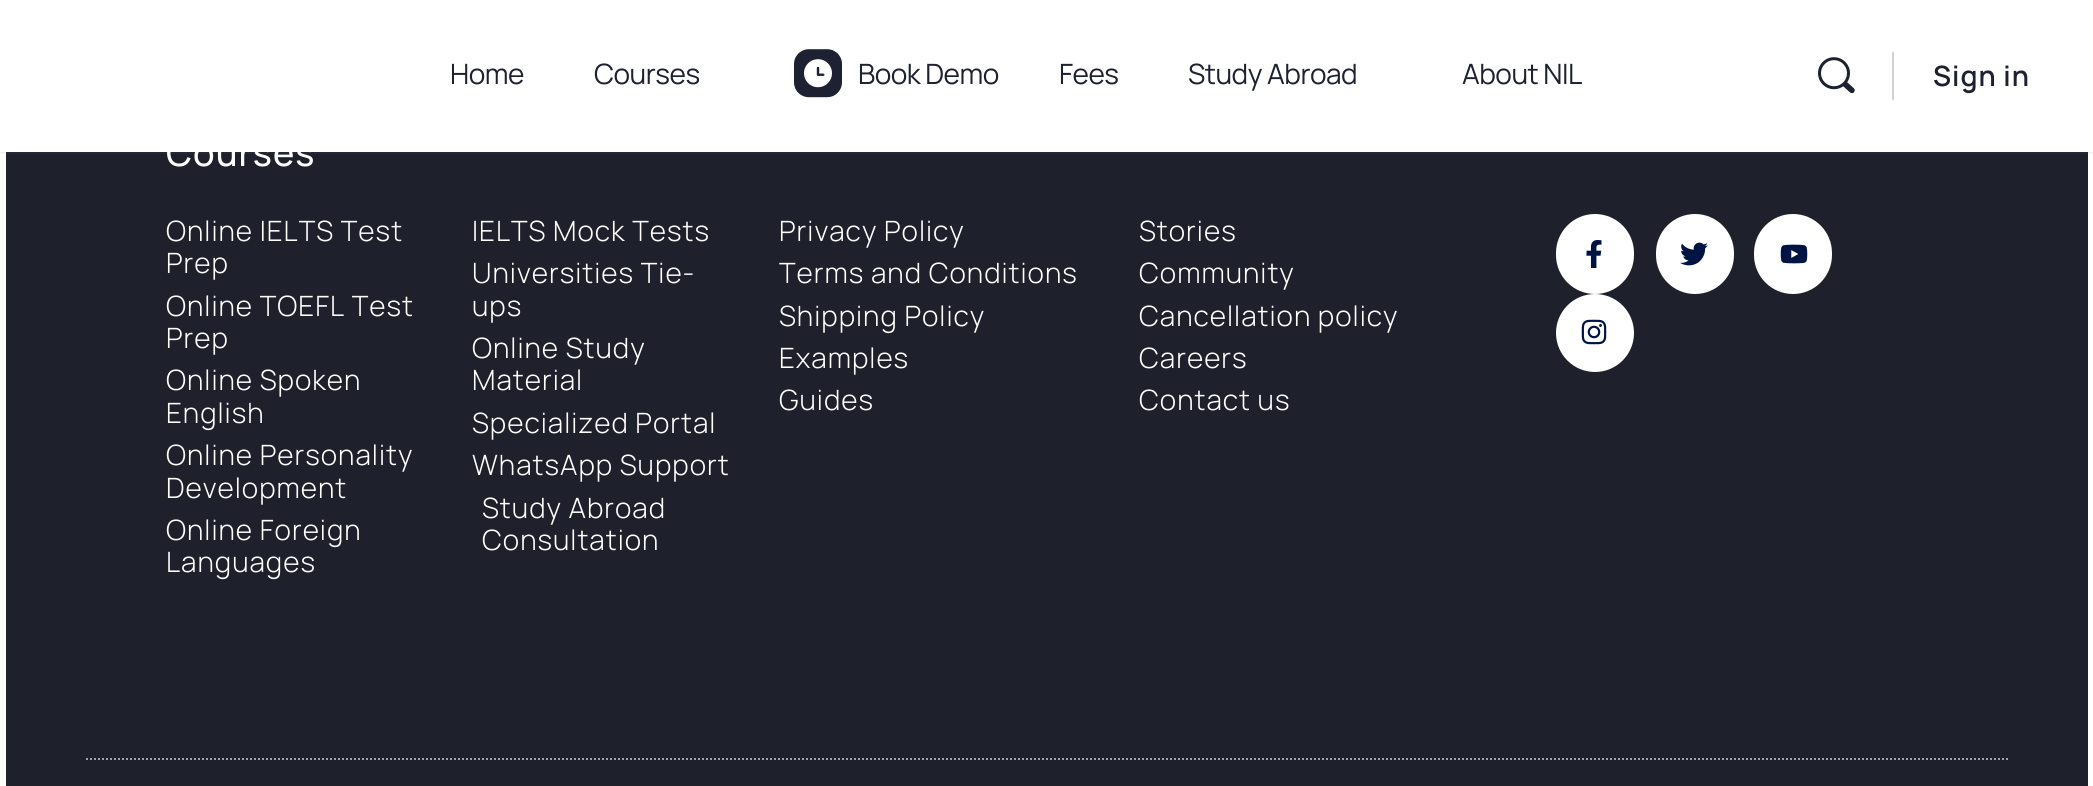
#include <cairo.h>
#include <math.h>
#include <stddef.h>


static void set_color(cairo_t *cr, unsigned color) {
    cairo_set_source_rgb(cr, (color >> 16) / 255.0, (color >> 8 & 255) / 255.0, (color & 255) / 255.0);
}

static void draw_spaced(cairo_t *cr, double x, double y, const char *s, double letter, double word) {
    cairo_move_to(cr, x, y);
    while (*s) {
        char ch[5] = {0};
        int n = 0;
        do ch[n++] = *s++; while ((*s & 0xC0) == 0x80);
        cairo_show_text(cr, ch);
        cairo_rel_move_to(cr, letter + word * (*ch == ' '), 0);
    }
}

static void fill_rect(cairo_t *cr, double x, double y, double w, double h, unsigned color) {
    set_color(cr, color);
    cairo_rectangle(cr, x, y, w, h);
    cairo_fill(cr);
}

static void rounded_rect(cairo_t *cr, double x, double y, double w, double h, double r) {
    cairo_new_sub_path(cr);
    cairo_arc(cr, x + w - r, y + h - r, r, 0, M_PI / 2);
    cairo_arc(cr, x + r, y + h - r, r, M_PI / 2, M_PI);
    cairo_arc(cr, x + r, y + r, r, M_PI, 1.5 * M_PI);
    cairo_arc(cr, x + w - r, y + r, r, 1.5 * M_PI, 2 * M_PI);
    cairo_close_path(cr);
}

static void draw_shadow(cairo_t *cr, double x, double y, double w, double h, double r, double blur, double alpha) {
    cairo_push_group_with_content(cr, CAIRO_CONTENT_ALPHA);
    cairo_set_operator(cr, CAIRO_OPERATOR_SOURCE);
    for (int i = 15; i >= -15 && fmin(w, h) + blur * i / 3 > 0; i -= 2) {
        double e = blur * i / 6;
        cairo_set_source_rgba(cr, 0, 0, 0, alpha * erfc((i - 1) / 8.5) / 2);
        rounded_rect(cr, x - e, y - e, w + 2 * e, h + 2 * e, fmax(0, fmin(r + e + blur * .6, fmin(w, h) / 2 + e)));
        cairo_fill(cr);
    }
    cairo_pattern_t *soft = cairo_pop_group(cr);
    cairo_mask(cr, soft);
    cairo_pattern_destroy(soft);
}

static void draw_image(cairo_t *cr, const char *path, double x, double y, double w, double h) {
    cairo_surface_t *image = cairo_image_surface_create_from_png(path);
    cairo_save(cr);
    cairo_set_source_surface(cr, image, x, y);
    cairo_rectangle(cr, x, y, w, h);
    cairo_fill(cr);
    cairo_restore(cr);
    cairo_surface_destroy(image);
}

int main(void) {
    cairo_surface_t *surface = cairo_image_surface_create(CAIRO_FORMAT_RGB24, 2093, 786);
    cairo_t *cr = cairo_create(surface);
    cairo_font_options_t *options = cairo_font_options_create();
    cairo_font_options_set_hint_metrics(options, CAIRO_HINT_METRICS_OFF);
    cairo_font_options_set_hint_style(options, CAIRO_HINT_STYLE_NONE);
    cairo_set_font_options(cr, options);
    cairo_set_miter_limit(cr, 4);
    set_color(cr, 0x1E202C);
    cairo_paint(cr);
    cairo_rectangle(cr, 3, -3, 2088, 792);
    set_color(cr, 0xFFFFFF);
    cairo_set_line_width(cr, 6);
    cairo_stroke(cr);
    set_color(cr, 0x41476C);
    draw_shadow(cr, 0, 0, 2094, 152, 0, 1, 0.15);
    cairo_set_source_rgba(cr, 0.545, 0.553, 0.616, 0.05);
    cairo_rectangle(cr, 0, 152, 2093, 2);
    cairo_fill(cr);
    fill_rect(cr, 0, 0, 2093, 152, 0xFFFFFF);
    cairo_select_font_face(cr, "Manrope", CAIRO_FONT_SLANT_NORMAL, CAIRO_FONT_WEIGHT_NORMAL);
    cairo_set_font_size(cr, 28);
    set_color(cr, 0x1E2132);
    draw_spaced(cr, 450, 84, "Home", -0.5, 0);
    draw_spaced(cr, 594, 84, "Courses", -0.5, 0);
    draw_image(cr, "assets/img1.png", 794, 49, 48, 49);
    draw_spaced(cr, 858, 84, "Book Demo", -0.5, 0);
    draw_spaced(cr, 1059, 84, "Fees", -0.5, 0);
    draw_spaced(cr, 1188, 84, "Study Abroad", -0.5, 0);
    draw_spaced(cr, 1462, 84, "About NIL", -0.5, 0);
    draw_image(cr, "assets/img2.png", 1818, 57, 37, 37);
    fill_rect(cr, 1892, 52, 2, 48, 0xD2D3D6);
    cairo_select_font_face(cr, "Manrope SemiBold", CAIRO_FONT_SLANT_NORMAL, CAIRO_FONT_WEIGHT_NORMAL);
    set_color(cr, 0x1E2132);
    draw_spaced(cr, 1933, 86, "Sign in", 1, 0);
    cairo_select_font_face(cr, "Manrope Medium", CAIRO_FONT_SLANT_NORMAL, CAIRO_FONT_WEIGHT_NORMAL);
    cairo_set_font_size(cr, 36);
    set_color(cr, 0xFFFFFF);
    draw_spaced(cr, 166, 166, "Courses", 1, 0);
    cairo_select_font_face(cr, "Manrope Light", CAIRO_FONT_SLANT_NORMAL, CAIRO_FONT_WEIGHT_NORMAL);
    cairo_set_font_size(cr, 28);
    draw_spaced(cr, 166, 241, "Online IELTS Test", 1, 0);
    draw_spaced(cr, 166, 273, "Prep", 1, 0);
    draw_spaced(cr, 166, 316, "Online TOEFL Test", 1, 0);
    draw_spaced(cr, 166, 348, "Prep", 1, 0);
    draw_spaced(cr, 166, 390, "Online Spoken", 1, 0);
    draw_spaced(cr, 166, 423, "English", 1, 0);
    draw_spaced(cr, 166, 465, "Online Personality", 1, 0);
    draw_spaced(cr, 166, 498, "Development", 1, 0);
    draw_spaced(cr, 166, 540, "Online Foreign", 1, 0);
    draw_spaced(cr, 166, 572, "Languages", 1, 0);
    draw_spaced(cr, 472, 241, "IELTS Mock Tests", 1, 0);
    draw_spaced(cr, 472, 283, "Universities Tie-", 1, 0);
    draw_spaced(cr, 472, 316, "ups", 1, 0);
    draw_spaced(cr, 472, 358, "Online Study", 1, 0);
    draw_spaced(cr, 472, 390, "Material", 1, 0);
    draw_spaced(cr, 472, 433, "Specialized Portal", 1, 0);
    draw_spaced(cr, 472, 475, "WhatsApp Support", 1, 0);
    draw_spaced(cr, 482, 518, "Study Abroad", 1, 0);
    draw_spaced(cr, 482, 550, "Consultation", 1, 0);
    draw_spaced(cr, 779, 241, "Privacy Policy", 1, 0);
    draw_spaced(cr, 779, 283, "Terms and Conditions", 1, 0);
    draw_spaced(cr, 779, 326, "Shipping Policy", 1, 0);
    draw_spaced(cr, 779, 368, "Examples", 1, 0);
    draw_spaced(cr, 779, 410, "Guides", 1, 0);
    draw_spaced(cr, 1139, 241, "Stories", 1, 0);
    draw_spaced(cr, 1139, 283, "Community", 1, 0);
    draw_spaced(cr, 1139, 326, "Cancellation policy", 1, 0);
    draw_spaced(cr, 1139, 368, "Careers", 1, 0);
    draw_spaced(cr, 1139, 410, "Contact us", 1, 0);
    rounded_rect(cr, 1556, 214, 78, 80, 39);
    cairo_fill(cr);
    draw_image(cr, "assets/img3.png", 1586, 240, 16, 28);
    rounded_rect(cr, 1656, 214, 78, 80, 39);
    cairo_fill(cr);
    draw_image(cr, "assets/img4.png", 1680, 242, 28, 24);
    rounded_rect(cr, 1754, 214, 78, 80, 39);
    cairo_fill(cr);
    draw_image(cr, "assets/img5.png", 1780, 244, 28, 20);
    cairo_arc(cr, 1595, 333, 39, 0, 2 * M_PI);
    cairo_fill(cr);
    draw_image(cr, "assets/img6.png", 1581, 319, 26, 26);
    cairo_new_path(cr);
    cairo_move_to(cr, 86, 759);
    cairo_line_to(cr, 2008, 759);
    set_color(cr, 0xA3A4A8);
    cairo_set_line_width(cr, 2);
    cairo_set_dash(cr, (double[]){2, 2}, 2, 0);
    cairo_stroke(cr);
    cairo_surface_write_to_png(surface, "output.png");
    cairo_font_options_destroy(options);
    cairo_destroy(cr);
    cairo_surface_destroy(surface);
    return 0;
}
